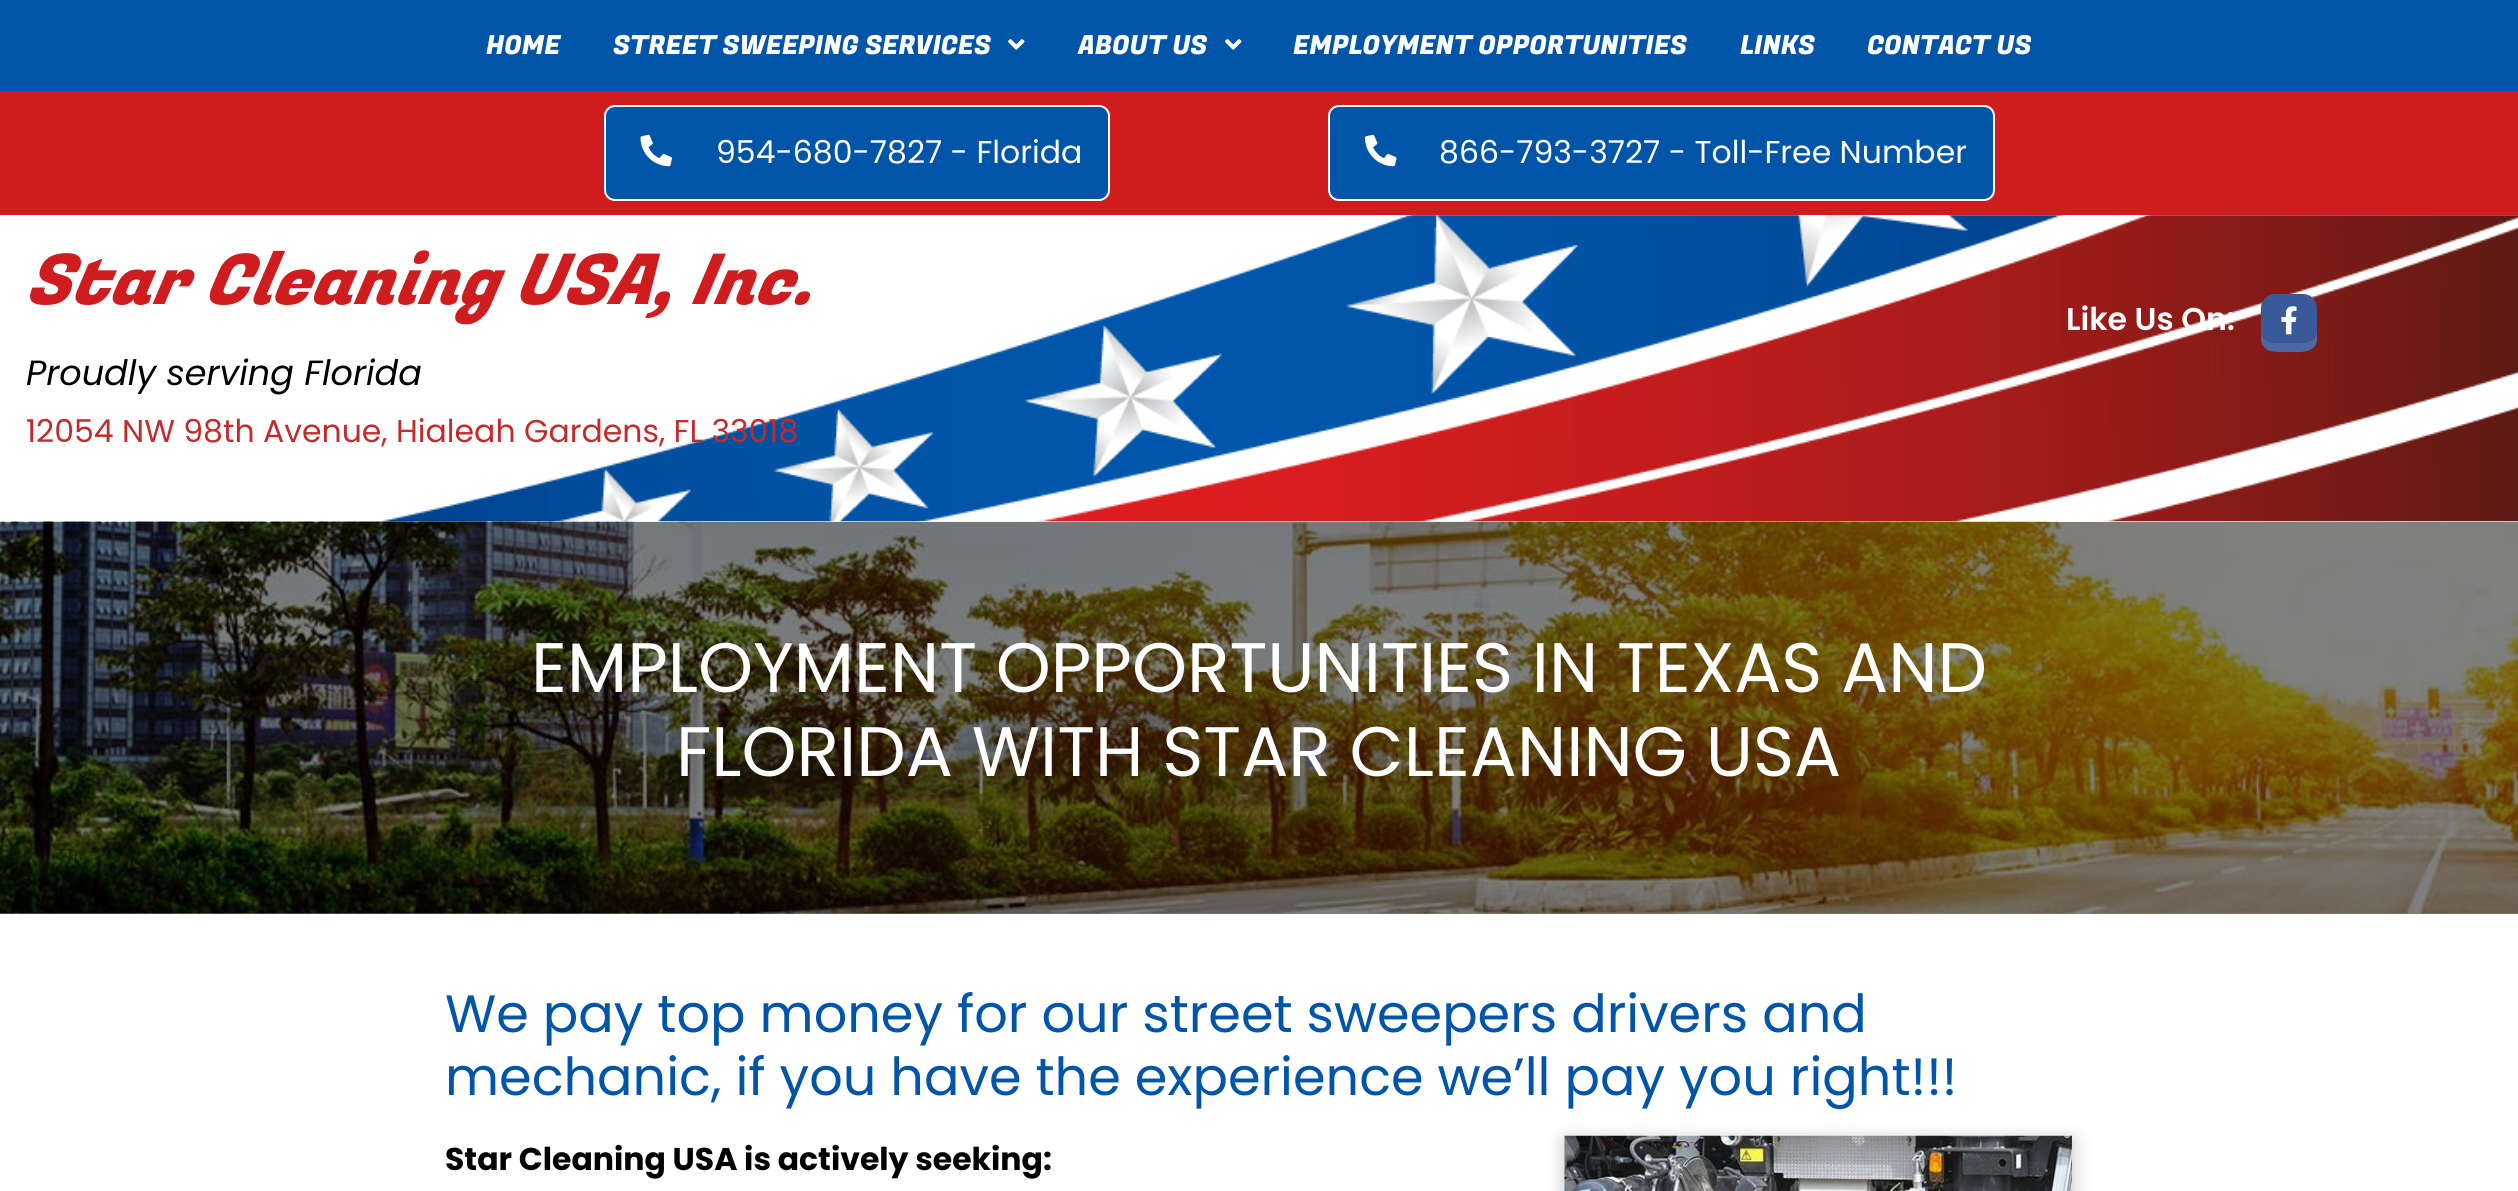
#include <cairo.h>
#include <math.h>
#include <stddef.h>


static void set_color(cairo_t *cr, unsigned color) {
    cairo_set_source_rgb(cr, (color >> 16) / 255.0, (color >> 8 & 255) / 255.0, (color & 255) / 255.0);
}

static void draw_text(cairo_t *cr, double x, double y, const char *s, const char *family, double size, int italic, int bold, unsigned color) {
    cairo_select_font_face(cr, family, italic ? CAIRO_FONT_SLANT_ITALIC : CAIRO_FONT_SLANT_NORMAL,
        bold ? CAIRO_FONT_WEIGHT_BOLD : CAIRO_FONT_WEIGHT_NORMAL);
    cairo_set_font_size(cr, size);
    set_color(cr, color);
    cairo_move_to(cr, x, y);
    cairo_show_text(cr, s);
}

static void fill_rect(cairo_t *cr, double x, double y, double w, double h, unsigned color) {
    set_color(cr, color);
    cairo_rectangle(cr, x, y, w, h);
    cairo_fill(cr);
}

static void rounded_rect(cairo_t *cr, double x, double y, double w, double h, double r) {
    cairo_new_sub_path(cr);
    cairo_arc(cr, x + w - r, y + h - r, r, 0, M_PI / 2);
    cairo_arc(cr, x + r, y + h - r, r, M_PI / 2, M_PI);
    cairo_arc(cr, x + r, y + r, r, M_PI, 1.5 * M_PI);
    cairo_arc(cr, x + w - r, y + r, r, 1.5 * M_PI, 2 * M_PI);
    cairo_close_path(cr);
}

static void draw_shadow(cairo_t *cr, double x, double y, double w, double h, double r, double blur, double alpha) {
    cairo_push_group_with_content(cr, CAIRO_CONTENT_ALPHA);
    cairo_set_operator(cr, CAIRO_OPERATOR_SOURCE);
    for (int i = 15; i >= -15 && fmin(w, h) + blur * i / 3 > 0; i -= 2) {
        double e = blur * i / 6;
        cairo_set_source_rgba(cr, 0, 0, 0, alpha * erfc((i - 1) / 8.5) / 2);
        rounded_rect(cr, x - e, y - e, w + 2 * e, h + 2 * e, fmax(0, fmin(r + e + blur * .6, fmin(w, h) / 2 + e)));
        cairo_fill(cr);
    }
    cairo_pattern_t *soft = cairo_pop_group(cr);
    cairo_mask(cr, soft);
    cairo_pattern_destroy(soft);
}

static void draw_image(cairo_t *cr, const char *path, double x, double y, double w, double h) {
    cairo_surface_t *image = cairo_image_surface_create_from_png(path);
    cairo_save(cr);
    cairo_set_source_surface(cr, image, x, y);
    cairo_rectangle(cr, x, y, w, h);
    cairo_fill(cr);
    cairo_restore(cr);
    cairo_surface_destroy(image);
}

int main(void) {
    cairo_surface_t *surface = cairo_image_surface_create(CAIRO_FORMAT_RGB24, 2518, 1191);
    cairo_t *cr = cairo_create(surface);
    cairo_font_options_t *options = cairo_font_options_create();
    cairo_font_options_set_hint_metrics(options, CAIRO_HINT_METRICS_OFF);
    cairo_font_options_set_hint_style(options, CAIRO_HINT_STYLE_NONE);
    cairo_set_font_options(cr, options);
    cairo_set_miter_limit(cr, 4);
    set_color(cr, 0xFFFFFF);
    cairo_paint(cr);
    fill_rect(cr, 0, 913, 2518, 1, 0x808080);
    fill_rect(cr, 0, 0, 2518, 91, 0x0055A9);
    draw_text(cr, 486, 54, "HOME", "Fugaz One", 26.25, 0, 0, 0xFFFFFF);
    draw_text(cr, 613, 54, "STREET SWEEPING SERVICES", "Fugaz One", 26.25, 0, 0, 0xFFFFFF);
    draw_image(cr, "assets/img1.png", 1008, 39, 17, 11);
    draw_text(cr, 1078, 54, "ABOUT US", "Fugaz One", 26.25, 0, 0, 0xFFFFFF);
    draw_image(cr, "assets/img1.png", 1225, 39, 17, 11);
    draw_text(cr, 1293, 54, "EMPLOYMENT OPPORTUNITIES", "Fugaz One", 26.25, 0, 0, 0xFFFFFF);
    draw_text(cr, 1740, 54, "LINKS", "Fugaz One", 26.25, 0, 0, 0xFFFFFF);
    draw_text(cr, 1867, 54, "CONTACT US", "Fugaz One", 26.25, 0, 0, 0xFFFFFF);
    fill_rect(cr, 0, 91, 2518, 124, 0xCF1D1F);
    set_color(cr, 0x0055A9);
    rounded_rect(cr, 605, 106, 504, 94, 10);
    cairo_fill_preserve(cr);
    set_color(cr, 0xFFFFFF);
    cairo_stroke(cr);
    draw_image(cr, "assets/img2.png", 640, 134, 32, 33);
    draw_text(cr, 716, 163, "954-680-7827 - Florida", "Poppins", 31.5, 0, 0, 0xFFFFFF);
    set_color(cr, 0x0055A9);
    rounded_rect(cr, 1329, 106, 665, 94, 10);
    cairo_fill_preserve(cr);
    set_color(cr, 0xFFFFFF);
    cairo_stroke(cr);
    draw_image(cr, "assets/img3.png", 1365, 134, 32, 33);
    draw_text(cr, 1439, 163, "866-793-3727 - Toll-Free Number", "Poppins", 31.5, 0, 0, 0xFFFFFF);
    draw_image(cr, "assets/img4.png", 377, 215, 2141, 307);
    draw_text(cr, 26, 304, "Star Cleaning USA, Inc.", "Fugaz One", 70, 1, 0, 0xCF1D1F);
    draw_text(cr, 26, 385, "Proudly serving Florida", "Poppins", 35, 1, 0, 0x000000);
    draw_text(cr, 26, 442, "12054 NW 98th Avenue, Hialeah Gardens, FL 33018", "Poppins", 31.5, 0, 0, 0xC32B2B);
    draw_text(cr, 2066, 330, "Like Us On:", "Poppins SemiBold", 31.5, 0, 0, 0xFFFFFF);
    set_color(cr, 0x4B68A5);
    cairo_new_path(cr);
    cairo_move_to(cr, 2261, 329);
    cairo_line_to(cr, 2261, 341);
    cairo_curve_to(cr, 2264, 354, 2279, 352, 2289, 352);
    cairo_curve_to(cr, 2299, 352, 2314, 354, 2317, 341);
    cairo_line_to(cr, 2317, 329);
    cairo_curve_to(cr, 2317, 337, 2311, 343, 2303, 343);
    cairo_line_to(cr, 2275, 343);
    cairo_curve_to(cr, 2267, 343, 2261, 337, 2261, 329);
    cairo_close_path(cr);
    cairo_fill(cr);
    set_color(cr, 0x3A5998);
    rounded_rect(cr, 2261, 294, 56, 49, 14);
    cairo_fill(cr);
    draw_image(cr, "assets/img5.png", 2281, 306, 16, 29);
    draw_image(cr, "assets/img6.png", 0, 521, 2518, 393);
    draw_text(cr, 531, 692, "EMPLOYMENT OPPORTUNITIES IN TEXAS AND", "Poppins", 70, 0, 0, 0xFFFFFF);
    draw_text(cr, 676, 776, "FLORIDA WITH STAR CLEANING USA", "Poppins", 70, 0, 0, 0xFFFFFF);
    draw_text(cr, 445, 1032, "We pay top money for our street sweepers drivers and", "Poppins", 52.5, 0, 0, 0x0055A9);
    draw_text(cr, 445, 1095, "mechanic, if you have the experience we’ll pay you right!!!", "Poppins", 52.5, 0, 0, 0x0055A9);
    draw_text(cr, 445, 1170, "Star Cleaning USA is actively seeking:", "Poppins", 31.5, 0, 1, 0x000000);
    set_color(cr, 0x000000);
    draw_shadow(cr, 1565, 1141, 507, 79, 0, 9.5, 0.25);
    draw_image(cr, "assets/img7.png", 1564, 1135, 508, 56);
    cairo_surface_write_to_png(surface, "output.png");
    cairo_font_options_destroy(options);
    cairo_destroy(cr);
    cairo_surface_destroy(surface);
    return 0;
}
